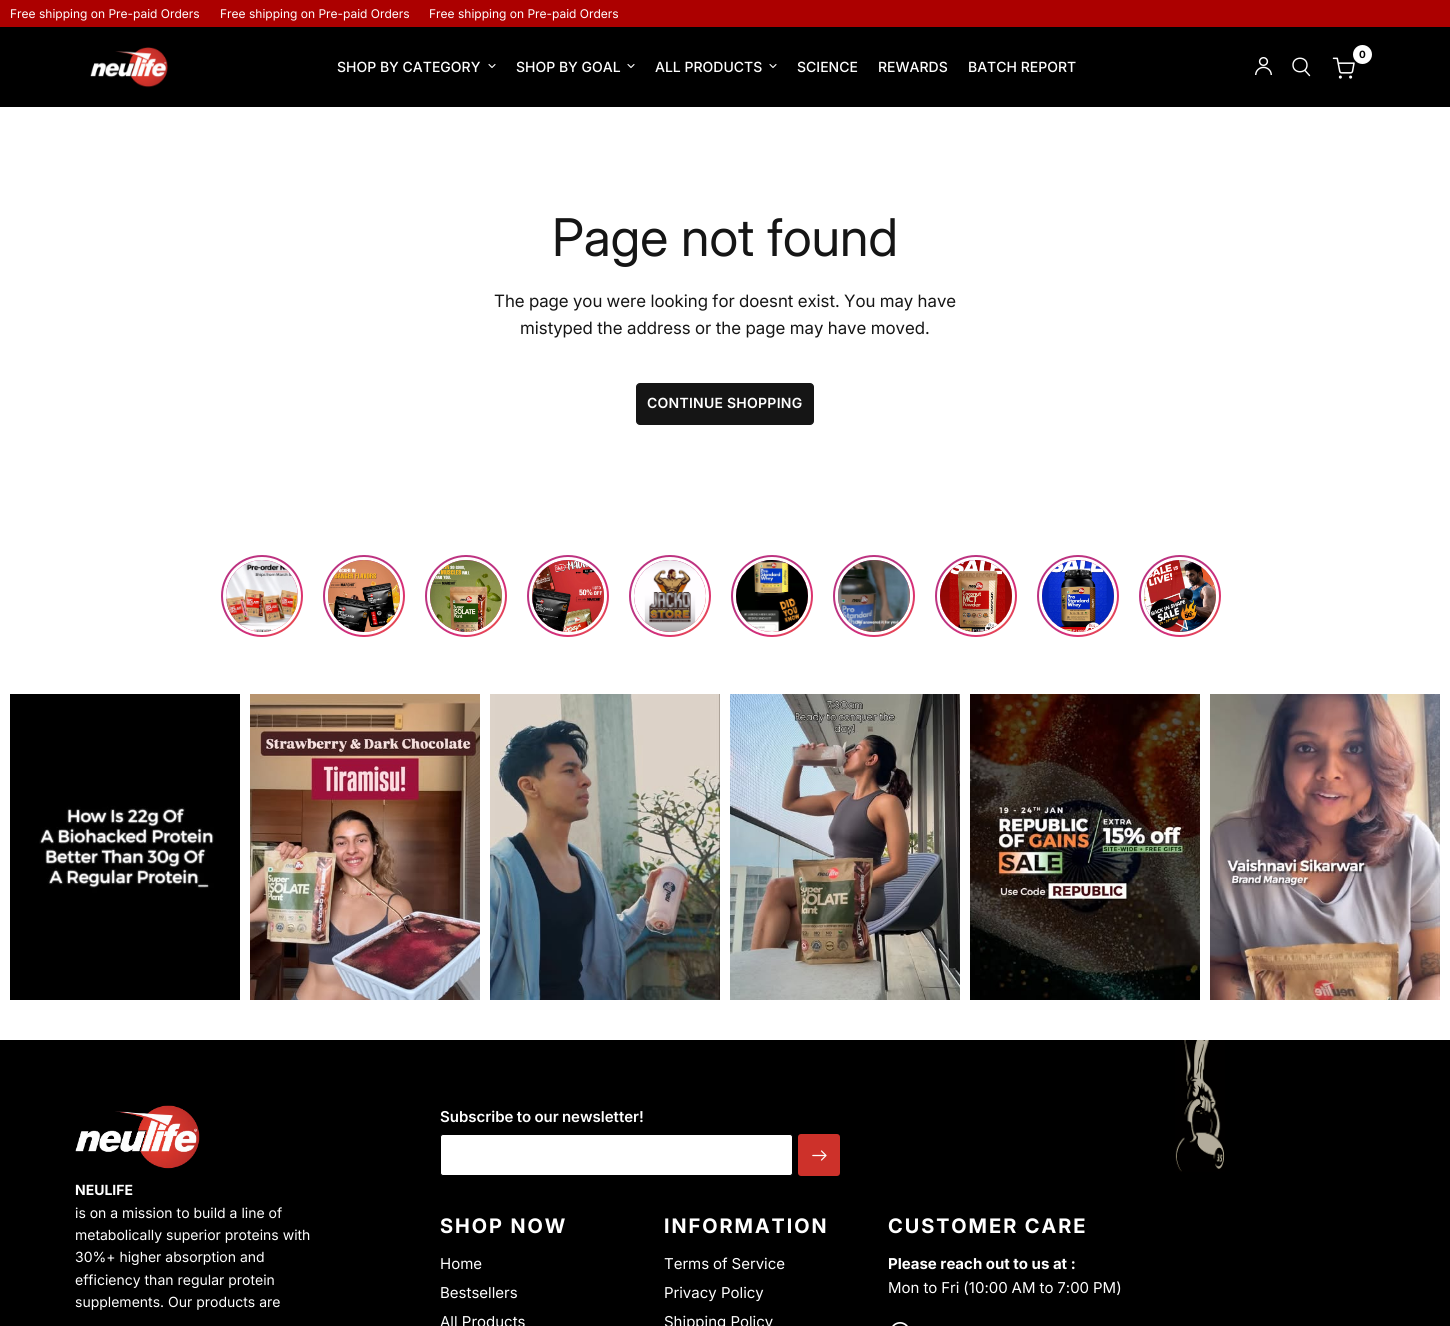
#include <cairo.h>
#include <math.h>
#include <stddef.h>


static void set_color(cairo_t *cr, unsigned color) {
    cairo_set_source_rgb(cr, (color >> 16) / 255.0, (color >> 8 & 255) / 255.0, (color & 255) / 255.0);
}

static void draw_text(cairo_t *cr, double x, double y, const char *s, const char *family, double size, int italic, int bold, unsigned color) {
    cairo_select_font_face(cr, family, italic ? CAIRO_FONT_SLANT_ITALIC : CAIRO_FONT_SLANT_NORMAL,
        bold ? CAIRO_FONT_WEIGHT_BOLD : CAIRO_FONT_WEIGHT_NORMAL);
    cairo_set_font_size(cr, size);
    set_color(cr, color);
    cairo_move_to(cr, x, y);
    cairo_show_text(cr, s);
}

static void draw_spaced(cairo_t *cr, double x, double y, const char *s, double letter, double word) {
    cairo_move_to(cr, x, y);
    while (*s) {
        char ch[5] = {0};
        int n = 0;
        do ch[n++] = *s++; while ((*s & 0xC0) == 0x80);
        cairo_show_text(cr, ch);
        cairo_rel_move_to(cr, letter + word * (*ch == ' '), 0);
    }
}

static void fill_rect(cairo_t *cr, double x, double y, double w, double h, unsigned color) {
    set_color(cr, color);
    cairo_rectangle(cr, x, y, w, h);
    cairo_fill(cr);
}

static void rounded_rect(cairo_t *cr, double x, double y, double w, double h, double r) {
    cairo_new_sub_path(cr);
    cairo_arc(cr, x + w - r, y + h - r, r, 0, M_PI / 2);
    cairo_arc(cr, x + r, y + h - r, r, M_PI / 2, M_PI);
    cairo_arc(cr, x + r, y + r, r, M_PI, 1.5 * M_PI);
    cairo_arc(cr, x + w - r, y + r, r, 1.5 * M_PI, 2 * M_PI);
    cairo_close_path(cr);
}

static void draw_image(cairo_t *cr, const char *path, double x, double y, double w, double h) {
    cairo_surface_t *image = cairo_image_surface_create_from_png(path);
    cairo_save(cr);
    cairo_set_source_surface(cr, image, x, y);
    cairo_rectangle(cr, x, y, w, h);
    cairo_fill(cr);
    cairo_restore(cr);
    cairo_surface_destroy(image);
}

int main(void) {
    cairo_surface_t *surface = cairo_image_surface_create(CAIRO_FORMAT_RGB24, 1450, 1326);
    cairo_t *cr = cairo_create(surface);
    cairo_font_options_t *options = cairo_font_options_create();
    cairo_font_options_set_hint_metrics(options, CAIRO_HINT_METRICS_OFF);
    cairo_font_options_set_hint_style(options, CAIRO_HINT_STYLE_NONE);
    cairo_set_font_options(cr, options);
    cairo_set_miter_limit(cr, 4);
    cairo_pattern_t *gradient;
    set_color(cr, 0xFFFFFF);
    cairo_paint(cr);
    fill_rect(cr, 0, 0, 1450, 27, 0xAC0000);
    draw_text(cr, 10, 18, "Free shipping on Pre-paid Orders", "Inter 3", 12, 0, 0, 0xFFFFFF);
    draw_text(cr, 220, 18, "Free shipping on Pre-paid Orders", "Inter 3", 12, 0, 0, 0xFFFFFF);
    draw_text(cr, 429, 18, "Free shipping on Pre-paid Orders", "Inter 3", 12, 0, 0, 0xFFFFFF);
    fill_rect(cr, 0, 27, 1450, 80, 0x000000);
    draw_image(cr, "assets/img1.png", 90, 47, 78, 41);
    draw_image(cr, "assets/img2.png", 1332, 57, 23, 22);
    set_color(cr, 0xFFFFFF);
    cairo_arc(cr, 1362.5, 54.5, 9.5, 0, 2 * M_PI);
    cairo_fill(cr);
    draw_text(cr, 1359, 58, "0", "Inter", 10, 0, 1, 0x000000);
    draw_image(cr, "assets/img3.png", 1255, 57, 17, 18);
    cairo_new_path(cr);
    cairo_move_to(cr, 1305, 70.5);
    cairo_line_to(cr, 1309.5, 75.5);
    cairo_move_to(cr, 1307, 65);
    cairo_curve_to(cr, 1307, 74, 1293, 74, 1293, 65);
    cairo_curve_to(cr, 1293, 56, 1307, 56, 1307, 65);
    cairo_close_path(cr);
    set_color(cr, 0xFFFFFF);
    cairo_set_line_width(cr, 1.4);
    cairo_set_line_cap(cr, CAIRO_LINE_CAP_ROUND);
    cairo_set_line_join(cr, CAIRO_LINE_JOIN_ROUND);
    cairo_stroke(cr);
    draw_text(cr, 337, 72, "SHOP BY CATEGORY", "Inter Medium", 14, 0, 0, 0xFFFFFF);
    cairo_new_path(cr);
    cairo_move_to(cr, 495, 64.5);
    cairo_line_to(cr, 492, 67.5);
    cairo_line_to(cr, 489, 64.5);
    cairo_set_line_width(cr, 1.1);
    cairo_stroke(cr);
    draw_text(cr, 516, 72, "SHOP BY GOAL", "Inter Medium", 14, 0, 0, 0xFFFFFF);
    cairo_new_path(cr);
    cairo_move_to(cr, 634, 64.5);
    cairo_line_to(cr, 631, 67.5);
    cairo_line_to(cr, 628, 64.5);
    cairo_stroke(cr);
    draw_text(cr, 655, 72, "ALL PRODUCTS", "Inter Medium", 14, 0, 0, 0xFFFFFF);
    cairo_new_path(cr);
    cairo_move_to(cr, 776, 64.5);
    cairo_line_to(cr, 773, 67.5);
    cairo_line_to(cr, 770, 64.5);
    cairo_stroke(cr);
    draw_text(cr, 797, 72, "SCIENCE", "Inter Medium", 14, 0, 0, 0xFFFFFF);
    draw_text(cr, 878, 72, "REWARDS", "Inter Medium", 14, 0, 0, 0xFFFFFF);
    draw_text(cr, 968, 72, "BATCH REPORT", "Inter Medium", 14, 0, 0, 0xFFFFFF);
    draw_text(cr, 552, 256, "Page not found", "Inter", 52, 0, 0, 0x151515);
    cairo_select_font_face(cr, "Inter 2", CAIRO_FONT_SLANT_NORMAL, CAIRO_FONT_WEIGHT_NORMAL);
    cairo_set_font_size(cr, 17);
    draw_spaced(cr, 494, 307, "The page you were looking for doesnt exist. You may have", 0, -0.4);
    draw_spaced(cr, 520, 334, "mistyped the address or the page may have moved.", 0, -0.25);
    rounded_rect(cr, 636.5, 383.5, 177, 41, 3.5);
    cairo_fill_preserve(cr);
    cairo_set_line_width(cr, 1);
    cairo_set_line_cap(cr, CAIRO_LINE_CAP_BUTT);
    cairo_set_line_join(cr, CAIRO_LINE_JOIN_MITER);
    cairo_stroke(cr);
    cairo_select_font_face(cr, "Inter SemiBold", CAIRO_FONT_SLANT_NORMAL, CAIRO_FONT_WEIGHT_NORMAL);
    cairo_set_font_size(cr, 14);
    set_color(cr, 0xFFFFFF);
    draw_spaced(cr, 647, 408, "CONTINUE SHOPPING", 0.25, 0);
    gradient = cairo_pattern_create_radial(278, 612, 0, 278, 612, 81);
    cairo_pattern_add_color_stop_rgba(gradient, 0.08, 0.933, 0.345, 0.247, 1);
    cairo_pattern_add_color_stop_rgba(gradient, 0.42, 0.851, 0.176, 0.467, 1);
    cairo_pattern_add_color_stop_rgba(gradient, 0.58, 0.741, 0.2, 0.506, 1);
    cairo_set_source(cr, gradient);
    cairo_pattern_destroy(gradient);
    cairo_new_path(cr);
    cairo_arc(cr, 262, 596, 41, 0, 2 * M_PI);
    cairo_fill(cr);
    cairo_arc(cr, 262, 596, 37.5, 0, 2 * M_PI);
    set_color(cr, 0xFFFFFF);
    cairo_set_line_width(cr, 3);
    cairo_stroke(cr);
    draw_image(cr, "assets/img4.png", 226, 560, 72, 72);
    gradient = cairo_pattern_create_radial(380, 612, 0, 380, 612, 81);
    cairo_pattern_add_color_stop_rgba(gradient, 0.08, 0.933, 0.345, 0.247, 1);
    cairo_pattern_add_color_stop_rgba(gradient, 0.42, 0.851, 0.176, 0.467, 1);
    cairo_pattern_add_color_stop_rgba(gradient, 0.58, 0.741, 0.2, 0.506, 1);
    cairo_set_source(cr, gradient);
    cairo_pattern_destroy(gradient);
    cairo_arc(cr, 364, 596, 41, 0, 2 * M_PI);
    cairo_fill(cr);
    cairo_arc(cr, 364, 596, 37.5, 0, 2 * M_PI);
    set_color(cr, 0xFFFFFF);
    cairo_stroke(cr);
    draw_image(cr, "assets/img5.png", 328, 560, 72, 72);
    gradient = cairo_pattern_create_radial(482, 612, 0, 482, 612, 81);
    cairo_pattern_add_color_stop_rgba(gradient, 0.08, 0.933, 0.345, 0.247, 1);
    cairo_pattern_add_color_stop_rgba(gradient, 0.42, 0.851, 0.176, 0.467, 1);
    cairo_pattern_add_color_stop_rgba(gradient, 0.58, 0.741, 0.2, 0.506, 1);
    cairo_set_source(cr, gradient);
    cairo_pattern_destroy(gradient);
    cairo_arc(cr, 466, 596, 41, 0, 2 * M_PI);
    cairo_fill(cr);
    cairo_arc(cr, 466, 596, 37.5, 0, 2 * M_PI);
    set_color(cr, 0xFFFFFF);
    cairo_stroke(cr);
    draw_image(cr, "assets/img6.png", 430, 560, 72, 72);
    gradient = cairo_pattern_create_radial(584, 612, 0, 584, 612, 81);
    cairo_pattern_add_color_stop_rgba(gradient, 0.08, 0.933, 0.345, 0.247, 1);
    cairo_pattern_add_color_stop_rgba(gradient, 0.42, 0.851, 0.176, 0.467, 1);
    cairo_pattern_add_color_stop_rgba(gradient, 0.58, 0.741, 0.2, 0.506, 1);
    cairo_set_source(cr, gradient);
    cairo_pattern_destroy(gradient);
    cairo_arc(cr, 568, 596, 41, 0, 2 * M_PI);
    cairo_fill(cr);
    cairo_arc(cr, 568, 596, 37.5, 0, 2 * M_PI);
    set_color(cr, 0xFFFFFF);
    cairo_stroke(cr);
    draw_image(cr, "assets/img7.png", 532, 560, 72, 72);
    gradient = cairo_pattern_create_radial(686, 612, 0, 686, 612, 81);
    cairo_pattern_add_color_stop_rgba(gradient, 0.08, 0.933, 0.345, 0.247, 1);
    cairo_pattern_add_color_stop_rgba(gradient, 0.42, 0.851, 0.176, 0.467, 1);
    cairo_pattern_add_color_stop_rgba(gradient, 0.58, 0.741, 0.2, 0.506, 1);
    cairo_set_source(cr, gradient);
    cairo_pattern_destroy(gradient);
    cairo_arc(cr, 670, 596, 41, 0, 2 * M_PI);
    cairo_fill(cr);
    cairo_arc(cr, 670, 596, 37.5, 0, 2 * M_PI);
    set_color(cr, 0xFFFFFF);
    cairo_stroke(cr);
    draw_image(cr, "assets/img8.png", 634, 560, 72, 72);
    gradient = cairo_pattern_create_radial(788, 612, 0, 788, 612, 81);
    cairo_pattern_add_color_stop_rgba(gradient, 0.08, 0.933, 0.345, 0.247, 1);
    cairo_pattern_add_color_stop_rgba(gradient, 0.42, 0.851, 0.176, 0.467, 1);
    cairo_pattern_add_color_stop_rgba(gradient, 0.58, 0.741, 0.2, 0.506, 1);
    cairo_set_source(cr, gradient);
    cairo_pattern_destroy(gradient);
    cairo_arc(cr, 772, 596, 41, 0, 2 * M_PI);
    cairo_fill(cr);
    cairo_arc(cr, 772, 596, 37.5, 0, 2 * M_PI);
    set_color(cr, 0xFFFFFF);
    cairo_stroke(cr);
    draw_image(cr, "assets/img9.png", 736, 560, 72, 72);
    gradient = cairo_pattern_create_radial(890, 612, 0, 890, 612, 81);
    cairo_pattern_add_color_stop_rgba(gradient, 0.08, 0.933, 0.345, 0.247, 1);
    cairo_pattern_add_color_stop_rgba(gradient, 0.42, 0.851, 0.176, 0.467, 1);
    cairo_pattern_add_color_stop_rgba(gradient, 0.58, 0.741, 0.2, 0.506, 1);
    cairo_set_source(cr, gradient);
    cairo_pattern_destroy(gradient);
    cairo_arc(cr, 874, 596, 41, 0, 2 * M_PI);
    cairo_fill(cr);
    cairo_arc(cr, 874, 596, 37.5, 0, 2 * M_PI);
    set_color(cr, 0xFFFFFF);
    cairo_stroke(cr);
    draw_image(cr, "assets/img10.png", 838, 560, 72, 72);
    gradient = cairo_pattern_create_radial(992, 612, 0, 992, 612, 81);
    cairo_pattern_add_color_stop_rgba(gradient, 0.08, 0.933, 0.345, 0.247, 1);
    cairo_pattern_add_color_stop_rgba(gradient, 0.42, 0.851, 0.176, 0.467, 1);
    cairo_pattern_add_color_stop_rgba(gradient, 0.58, 0.741, 0.2, 0.506, 1);
    cairo_set_source(cr, gradient);
    cairo_pattern_destroy(gradient);
    cairo_arc(cr, 976, 596, 41, 0, 2 * M_PI);
    cairo_fill(cr);
    cairo_arc(cr, 976, 596, 37.5, 0, 2 * M_PI);
    set_color(cr, 0xFFFFFF);
    cairo_stroke(cr);
    draw_image(cr, "assets/img11.png", 940, 560, 72, 72);
    gradient = cairo_pattern_create_radial(1094, 612, 0, 1094, 612, 81);
    cairo_pattern_add_color_stop_rgba(gradient, 0.08, 0.933, 0.345, 0.247, 1);
    cairo_pattern_add_color_stop_rgba(gradient, 0.42, 0.851, 0.176, 0.467, 1);
    cairo_pattern_add_color_stop_rgba(gradient, 0.58, 0.741, 0.2, 0.506, 1);
    cairo_set_source(cr, gradient);
    cairo_pattern_destroy(gradient);
    cairo_arc(cr, 1078, 596, 41, 0, 2 * M_PI);
    cairo_fill(cr);
    cairo_arc(cr, 1078, 596, 37.5, 0, 2 * M_PI);
    set_color(cr, 0xFFFFFF);
    cairo_stroke(cr);
    draw_image(cr, "assets/img12.png", 1042, 560, 72, 72);
    gradient = cairo_pattern_create_radial(1196, 612, 0, 1196, 612, 81);
    cairo_pattern_add_color_stop_rgba(gradient, 0.08, 0.933, 0.345, 0.247, 1);
    cairo_pattern_add_color_stop_rgba(gradient, 0.42, 0.851, 0.176, 0.467, 1);
    cairo_pattern_add_color_stop_rgba(gradient, 0.58, 0.741, 0.2, 0.506, 1);
    cairo_set_source(cr, gradient);
    cairo_pattern_destroy(gradient);
    cairo_arc(cr, 1180, 596, 41, 0, 2 * M_PI);
    cairo_fill(cr);
    cairo_arc(cr, 1180, 596, 37.5, 0, 2 * M_PI);
    set_color(cr, 0xFFFFFF);
    cairo_stroke(cr);
    draw_image(cr, "assets/img13.png", 1144, 560, 72, 72);
    draw_image(cr, "assets/img14.png", 10, 694, 230, 306);
    draw_image(cr, "assets/img15.png", 250, 694, 230, 306);
    draw_image(cr, "assets/img16.png", 490, 694, 230, 306);
    draw_image(cr, "assets/img17.png", 730, 694, 230, 306);
    draw_image(cr, "assets/img18.png", 970, 694, 230, 306);
    draw_image(cr, "assets/img19.png", 1210, 694, 230, 306);
    fill_rect(cr, 0, 1040, 1450, 286, 0x000000);
    draw_image(cr, "assets/img20.png", 1175, 1040, 50, 132);
    draw_image(cr, "assets/img21.png", 75, 1105, 125, 64);
    draw_text(cr, 75, 1195, "NEULIFE", "Inter", 14, 0, 1, 0xFFFFFF);
    draw_text(cr, 75, 1218, "is on a mission to build a line of", "Inter 3", 14, 0, 0, 0xFFFFFF);
    draw_text(cr, 75, 1240, "metabolically superior proteins with", "Inter 3", 14, 0, 0, 0xFFFFFF);
    draw_text(cr, 75, 1262, "30%+ higher absorption and", "Inter 3", 14, 0, 0, 0xFFFFFF);
    draw_text(cr, 75, 1285, "efficiency than regular protein", "Inter 3", 14, 0, 0, 0xFFFFFF);
    draw_text(cr, 75, 1307, "supplements. Our products are", "Inter 3", 14, 0, 0, 0xFFFFFF);
    cairo_select_font_face(cr, "Inter SemiBold", CAIRO_FONT_SLANT_NORMAL, CAIRO_FONT_WEIGHT_NORMAL);
    cairo_set_font_size(cr, 15);
    draw_spaced(cr, 440, 1122, "Subscribe to our newsletter!", 0, -0.5);
    rounded_rect(cr, 440.5, 1134.5, 352, 41, 2.5);
    cairo_fill_preserve(cr);
    set_color(cr, 0x000000);
    cairo_set_line_width(cr, 1);
    cairo_stroke(cr);
    set_color(cr, 0xCD312A);
    rounded_rect(cr, 798, 1134, 42, 42, 3);
    cairo_fill(cr);
    draw_image(cr, "assets/img22.png", 812, 1150, 15, 11);
    cairo_select_font_face(cr, "Inter 2", CAIRO_FONT_SLANT_NORMAL, CAIRO_FONT_WEIGHT_BOLD);
    cairo_set_font_size(cr, 20);
    set_color(cr, 0xFFFFFF);
    draw_spaced(cr, 440, 1233, "SHOP NOW", 2, 0);
    draw_text(cr, 440, 1269, "Home", "Inter 3", 15, 0, 0, 0xFFFFFF);
    draw_text(cr, 440, 1298, "Bestsellers", "Inter 3", 15, 0, 0, 0xFFFFFF);
    draw_text(cr, 440, 1327, "All Products", "Inter 3", 15, 0, 0, 0xFFFFFF);
    cairo_select_font_face(cr, "Inter 2", CAIRO_FONT_SLANT_NORMAL, CAIRO_FONT_WEIGHT_BOLD);
    cairo_set_font_size(cr, 20);
    draw_spaced(cr, 664, 1233, "INFORMATION", 2, 0);
    cairo_select_font_face(cr, "Inter 3", CAIRO_FONT_SLANT_NORMAL, CAIRO_FONT_WEIGHT_NORMAL);
    cairo_set_font_size(cr, 15);
    draw_spaced(cr, 664, 1269, "Terms of Service", 0, -0.25);
    draw_text(cr, 664, 1298, "Privacy Policy", "Inter 3", 15, 0, 0, 0xFFFFFF);
    draw_text(cr, 664, 1327, "Shipping Policy", "Inter 3", 15, 0, 0, 0xFFFFFF);
    cairo_select_font_face(cr, "Inter 2", CAIRO_FONT_SLANT_NORMAL, CAIRO_FONT_WEIGHT_BOLD);
    cairo_set_font_size(cr, 20);
    draw_spaced(cr, 888, 1233, "CUSTOMER CARE", 2, 0);
    draw_text(cr, 888, 1269, "Please reach out to us at :", "Inter", 15, 0, 1, 0xFFFFFF);
    cairo_select_font_face(cr, "Inter 3", CAIRO_FONT_SLANT_NORMAL, CAIRO_FONT_WEIGHT_NORMAL);
    draw_spaced(cr, 888, 1293, "Mon to Fri (10:00 AM to 7:00 PM)", 0, -0.25);
    draw_image(cr, "assets/img23.png", 892, 1322, 16, 4);
    cairo_surface_write_to_png(surface, "output.png");
    cairo_font_options_destroy(options);
    cairo_destroy(cr);
    cairo_surface_destroy(surface);
    return 0;
}
